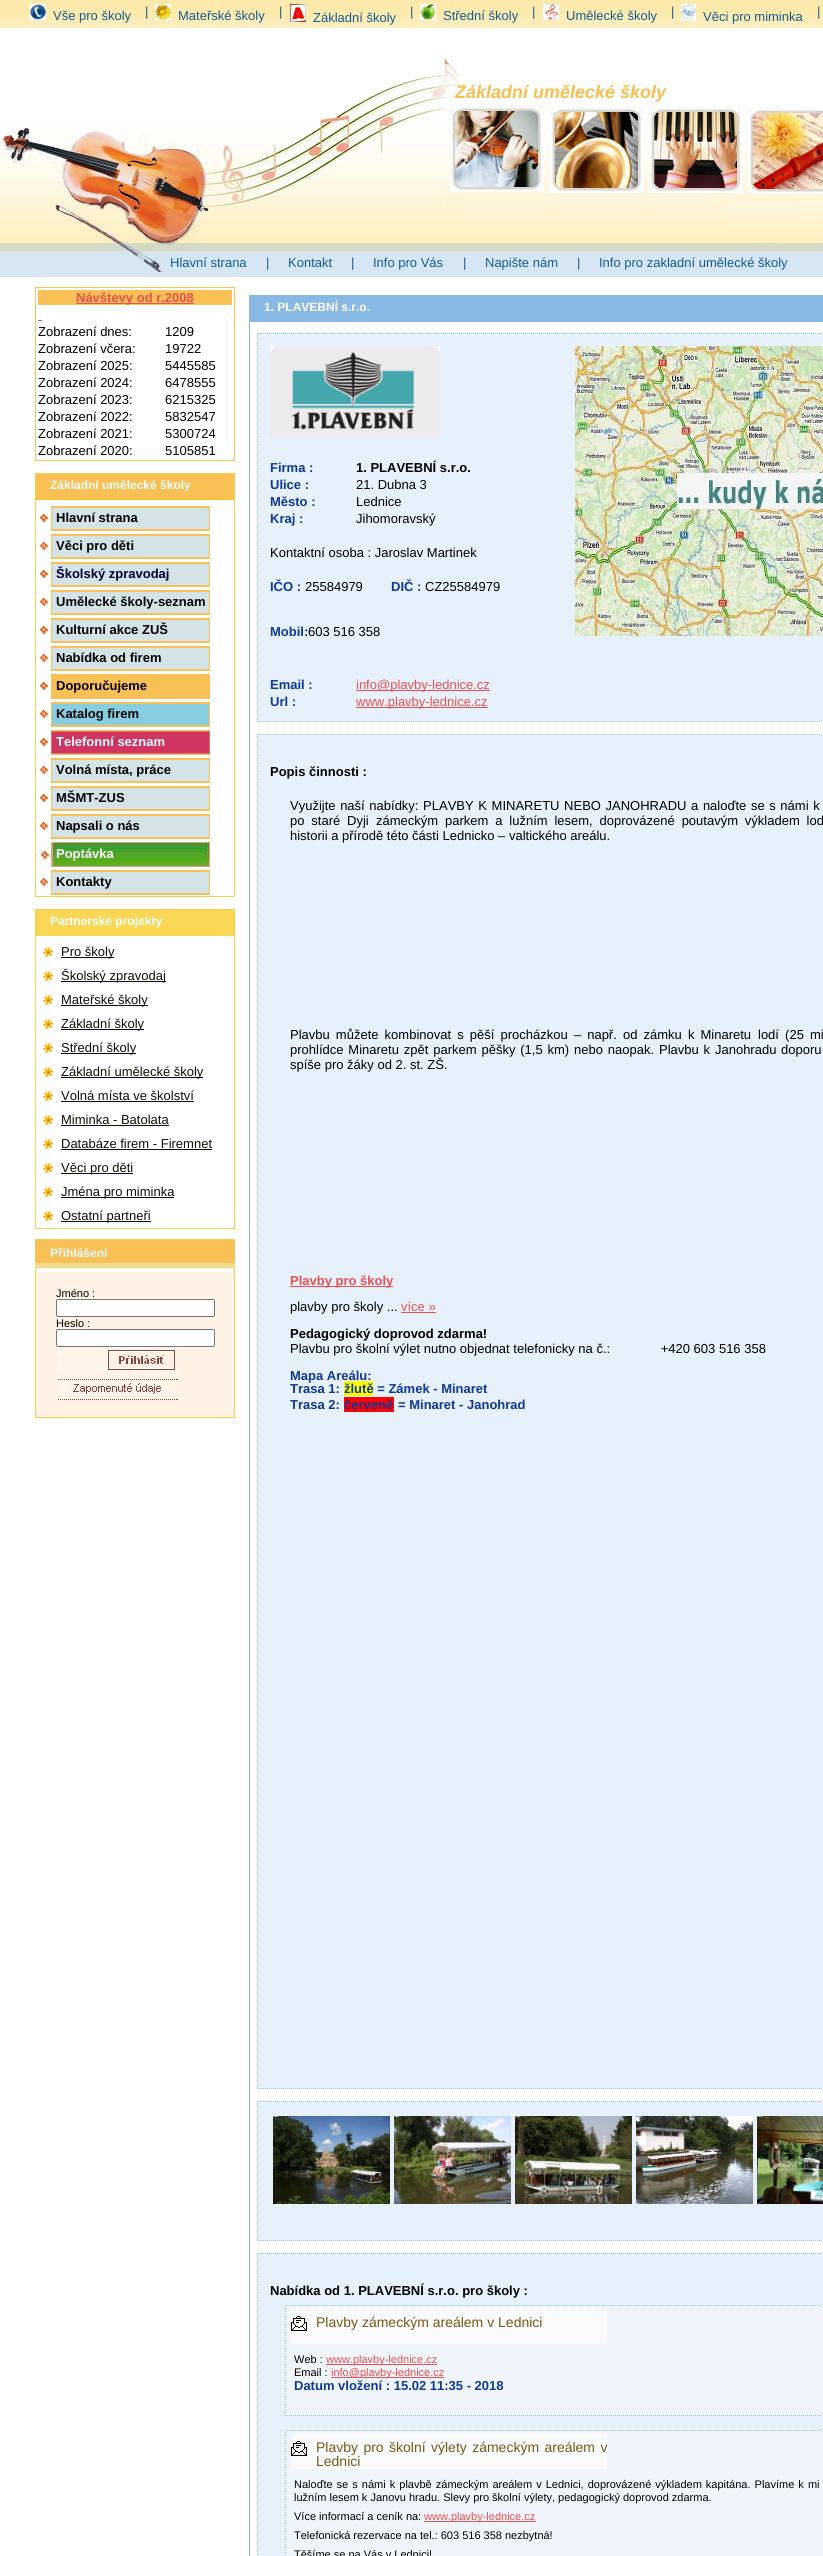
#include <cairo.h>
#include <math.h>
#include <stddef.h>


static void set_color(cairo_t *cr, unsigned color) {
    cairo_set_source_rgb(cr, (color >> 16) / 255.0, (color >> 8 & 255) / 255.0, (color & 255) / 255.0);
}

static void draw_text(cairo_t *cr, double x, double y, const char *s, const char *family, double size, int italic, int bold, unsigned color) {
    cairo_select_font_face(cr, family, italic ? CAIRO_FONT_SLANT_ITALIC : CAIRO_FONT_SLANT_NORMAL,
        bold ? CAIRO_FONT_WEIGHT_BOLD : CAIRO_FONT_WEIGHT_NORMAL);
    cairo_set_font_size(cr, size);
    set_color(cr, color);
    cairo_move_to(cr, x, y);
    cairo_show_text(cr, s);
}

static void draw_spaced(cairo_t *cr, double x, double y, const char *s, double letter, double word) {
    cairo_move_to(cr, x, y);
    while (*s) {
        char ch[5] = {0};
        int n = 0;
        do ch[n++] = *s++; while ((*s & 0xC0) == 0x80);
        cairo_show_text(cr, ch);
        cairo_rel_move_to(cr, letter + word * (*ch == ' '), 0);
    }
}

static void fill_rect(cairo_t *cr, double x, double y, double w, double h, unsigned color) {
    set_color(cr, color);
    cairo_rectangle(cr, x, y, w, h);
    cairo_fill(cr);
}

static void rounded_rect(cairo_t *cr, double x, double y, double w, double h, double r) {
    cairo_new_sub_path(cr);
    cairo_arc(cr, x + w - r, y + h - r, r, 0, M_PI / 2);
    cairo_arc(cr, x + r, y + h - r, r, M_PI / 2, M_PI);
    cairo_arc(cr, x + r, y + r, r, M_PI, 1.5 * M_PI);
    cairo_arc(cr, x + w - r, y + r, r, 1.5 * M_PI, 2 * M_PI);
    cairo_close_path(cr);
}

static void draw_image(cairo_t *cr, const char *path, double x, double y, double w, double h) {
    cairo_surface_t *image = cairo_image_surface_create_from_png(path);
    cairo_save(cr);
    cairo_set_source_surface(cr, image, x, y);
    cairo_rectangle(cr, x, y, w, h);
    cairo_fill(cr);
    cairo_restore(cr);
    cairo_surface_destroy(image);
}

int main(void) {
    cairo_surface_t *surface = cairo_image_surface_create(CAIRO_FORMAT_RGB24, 823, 2556);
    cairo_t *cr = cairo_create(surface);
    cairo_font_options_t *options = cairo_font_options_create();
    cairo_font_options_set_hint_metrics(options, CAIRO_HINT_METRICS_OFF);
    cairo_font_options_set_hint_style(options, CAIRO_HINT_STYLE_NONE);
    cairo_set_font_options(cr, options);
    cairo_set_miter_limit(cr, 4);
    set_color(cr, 0xFFFFFF);
    cairo_paint(cr);
    draw_image(cr, "assets/img1.png", 0, 272, 823, 5);
    draw_image(cr, "assets/img2.png", 0, 0, 823, 28);
    draw_image(cr, "assets/img3.png", 30, 4, 16, 16);
    draw_text(cr, 53, 20, "Vše pro školy", "Liberation Sans", 13, 0, 0, 0x165A94);
    draw_text(cr, 145, 16, "|", "Liberation Sans", 13, 0, 0, 0x165A94);
    draw_image(cr, "assets/img4.png", 155, 4, 16, 16);
    draw_text(cr, 178, 20, "Mateřské školy", "Liberation Sans", 13, 0, 0, 0x165A94);
    draw_text(cr, 279, 16, "|", "Liberation Sans", 13, 0, 0, 0x165A94);
    draw_image(cr, "assets/img5.png", 290, 4, 16, 18);
    draw_text(cr, 313, 22, "Základní školy", "Liberation Sans", 13, 0, 0, 0x165A94);
    draw_text(cr, 410, 16, "|", "Liberation Sans", 13, 0, 0, 0x165A94);
    draw_image(cr, "assets/img6.png", 420, 4, 16, 16);
    draw_text(cr, 443, 20, "Střední školy", "Liberation Sans", 13, 0, 0, 0x165A94);
    draw_text(cr, 532, 16, "|", "Liberation Sans", 13, 0, 0, 0x165A94);
    draw_image(cr, "assets/img7.png", 543, 4, 16, 16);
    draw_text(cr, 566, 20, "Umělecké školy", "Liberation Sans", 13, 0, 0, 0x165A94);
    draw_text(cr, 671, 16, "|", "Liberation Sans", 13, 0, 0, 0x165A94);
    draw_image(cr, "assets/img8.png", 681, 4, 15, 17);
    draw_text(cr, 703, 21, "Věci pro miminka", "Liberation Sans", 13, 0, 0, 0x165A94);
    draw_text(cr, 817, 16, "|", "Liberation Sans", 13, 0, 0, 0x165A94);
    draw_image(cr, "assets/img9.png", 0, 56, 823, 216);
    draw_text(cr, 455, 98, "Základní umělecké školy", "Liberation Sans", 18, 1, 1, 0xF9BD4B);
    draw_text(cr, 170, 267, "Hlavní strana", "Liberation Sans", 13, 0, 0, 0x165A94);
    draw_text(cr, 266, 267, "|", "Liberation Sans", 13, 0, 0, 0x165A94);
    draw_text(cr, 288, 267, "Kontakt", "Liberation Sans", 13, 0, 0, 0x165A94);
    draw_text(cr, 351, 267, "|", "Liberation Sans", 13, 0, 0, 0x165A94);
    draw_text(cr, 373, 267, "Info pro Vás", "Liberation Sans", 13, 0, 0, 0x165A94);
    draw_text(cr, 463, 267, "|", "Liberation Sans", 13, 0, 0, 0x165A94);
    draw_text(cr, 485, 267, "Napište nám", "Liberation Sans", 13, 0, 0, 0x165A94);
    draw_text(cr, 577, 267, "|", "Liberation Sans", 13, 0, 0, 0x165A94);
    draw_text(cr, 599, 267, "Info pro zakladní umělecké školy", "Liberation Sans", 13, 0, 0, 0x165A94);
    cairo_rectangle(cr, 35.5, 287.5, 199, 173);
    set_color(cr, 0xF8C055);
    cairo_set_line_width(cr, 1);
    cairo_stroke(cr);
    fill_rect(cr, 38, 290, 194, 15, 0xF8C055);
    fill_rect(cr, 76, 303, 118, 1, 0xEB4F4F);
    draw_text(cr, 76, 302, "Návštevy od r.2008", "Liberation Sans", 13, 0, 1, 0xEB4F4F);
    fill_rect(cr, 38, 320, 4, 1, 0xEB4F4F);
    draw_text(cr, 38, 336, "Zobrazení dnes:", "Liberation Sans", 13, 0, 0, 0x000000);
    draw_text(cr, 165, 336, "1209", "Liberation Sans", 13, 0, 0, 0x000000);
    draw_text(cr, 38, 353, "Zobrazení včera:", "Liberation Sans", 13, 0, 0, 0x000000);
    draw_text(cr, 165, 353, "19722", "Liberation Sans", 13, 0, 0, 0x000000);
    draw_text(cr, 38, 370, "Zobrazení 2025:", "Liberation Sans", 13, 0, 0, 0x000000);
    draw_text(cr, 165, 370, "5445585", "Liberation Sans", 13, 0, 0, 0x000000);
    draw_text(cr, 38, 387, "Zobrazení 2024:", "Liberation Sans", 13, 0, 0, 0x000000);
    draw_text(cr, 165, 387, "6478555", "Liberation Sans", 13, 0, 0, 0x000000);
    draw_text(cr, 38, 404, "Zobrazení 2023:", "Liberation Sans", 13, 0, 0, 0x000000);
    draw_text(cr, 165, 404, "6215325", "Liberation Sans", 13, 0, 0, 0x000000);
    draw_text(cr, 38, 421, "Zobrazení 2022:", "Liberation Sans", 13, 0, 0, 0x000000);
    draw_text(cr, 165, 421, "5832547", "Liberation Sans", 13, 0, 0, 0x000000);
    draw_text(cr, 38, 438, "Zobrazení 2021:", "Liberation Sans", 13, 0, 0, 0x000000);
    draw_text(cr, 165, 438, "5300724", "Liberation Sans", 13, 0, 0, 0x000000);
    draw_text(cr, 38, 455, "Zobrazení 2020:", "Liberation Sans", 13, 0, 0, 0x000000);
    draw_text(cr, 165, 455, "5105851", "Liberation Sans", 13, 0, 0, 0x000000);
    draw_image(cr, "assets/img10.png", 35, 467, 200, 37);
    draw_text(cr, 50, 489, "Základní umělecké školy", "Liberation Sans", 12, 0, 1, 0xFFFFFF);
    fill_rect(cr, 234, 504, 1, 393, 0xF6CF4A);
    fill_rect(cr, 35, 896, 200, 1, 0xF6CF4A);
    fill_rect(cr, 35, 504, 1, 393, 0xF6CF4A);
    draw_image(cr, "assets/img11.png", 39, 506, 171, 25);
    draw_text(cr, 56, 522, "Hlavní strana", "Liberation Sans", 13, 0, 1, 0x000000);
    draw_image(cr, "assets/img11.png", 39, 534, 171, 25);
    draw_text(cr, 56, 550, "Věci pro děti", "Liberation Sans", 13, 0, 1, 0x000000);
    draw_image(cr, "assets/img11.png", 39, 562, 171, 25);
    draw_text(cr, 56, 578, "Školský zpravodaj", "Liberation Sans", 13, 0, 1, 0x000033);
    draw_image(cr, "assets/img11.png", 39, 590, 171, 25);
    draw_text(cr, 56, 606, "Umělecké školy-seznam", "Liberation Sans", 13, 0, 1, 0x000000);
    draw_image(cr, "assets/img11.png", 39, 618, 171, 25);
    draw_text(cr, 56, 634, "Kulturní akce ZUŠ", "Liberation Sans", 13, 0, 1, 0x000000);
    draw_image(cr, "assets/img11.png", 39, 646, 171, 25);
    draw_text(cr, 56, 662, "Nabídka od firem", "Liberation Sans", 13, 0, 1, 0x000000);
    draw_image(cr, "assets/img12.png", 39, 674, 171, 25);
    draw_text(cr, 56, 690, "Doporučujeme", "Liberation Sans", 13, 0, 1, 0x000000);
    draw_image(cr, "assets/img13.png", 39, 702, 171, 25);
    draw_text(cr, 56, 718, "Katalog firem", "Liberation Sans", 13, 0, 1, 0x000000);
    draw_image(cr, "assets/img14.png", 39, 730, 171, 25);
    draw_text(cr, 56, 746, "Telefonní seznam", "Liberation Sans", 13, 0, 1, 0xFFFFFF);
    draw_image(cr, "assets/img11.png", 39, 758, 171, 25);
    draw_text(cr, 56, 774, "Volná místa, práce", "Liberation Sans", 13, 0, 1, 0x000000);
    draw_image(cr, "assets/img11.png", 39, 786, 171, 25);
    draw_text(cr, 56, 802, "MŠMT-ZUS", "Liberation Sans", 13, 0, 1, 0x000000);
    draw_image(cr, "assets/img11.png", 39, 814, 171, 25);
    draw_text(cr, 56, 830, "Napsali o nás", "Liberation Sans", 13, 0, 1, 0x000000);
    draw_image(cr, "assets/img15.png", 38, 842, 172, 25);
    draw_text(cr, 56, 858, "Poptávka", "Liberation Sans", 13, 0, 1, 0xFFFFFF);
    draw_image(cr, "assets/img11.png", 39, 870, 171, 25);
    draw_text(cr, 56, 886, "Kontakty", "Liberation Sans", 13, 0, 1, 0x000000);
    draw_image(cr, "assets/img16.png", 35, 909, 200, 31);
    draw_text(cr, 50, 925, "Partnerské projekty", "Liberation Sans", 12, 0, 1, 0xFFFFFF);
    fill_rect(cr, 234, 940, 1, 289, 0xF6CF4A);
    fill_rect(cr, 35, 1228, 200, 1, 0xF6CF4A);
    fill_rect(cr, 35, 940, 1, 289, 0xF6CF4A);
    draw_image(cr, "assets/img17.png", 43, 947, 10, 10);
    fill_rect(cr, 61, 957, 53, 1, 0x0F0D04);
    draw_text(cr, 61, 956, "Pro školy", "Liberation Sans", 13, 0, 0, 0x0F0D04);
    draw_image(cr, "assets/img17.png", 43, 971, 10, 10);
    fill_rect(cr, 61, 981, 105, 1, 0x0F0D04);
    draw_text(cr, 61, 980, "Školský zpravodaj", "Liberation Sans", 13, 0, 0, 0x0F0D04);
    draw_image(cr, "assets/img17.png", 43, 995, 10, 10);
    fill_rect(cr, 61, 1005, 87, 1, 0x0F0D04);
    draw_text(cr, 61, 1004, "Mateřské školy", "Liberation Sans", 13, 0, 0, 0x0F0D04);
    draw_image(cr, "assets/img17.png", 43, 1019, 10, 10);
    fill_rect(cr, 61, 1029, 83, 1, 0x0F0D04);
    draw_text(cr, 61, 1028, "Základní školy", "Liberation Sans", 13, 0, 0, 0x0F0D04);
    draw_image(cr, "assets/img17.png", 43, 1043, 10, 10);
    fill_rect(cr, 61, 1053, 75, 1, 0x0F0D04);
    draw_text(cr, 61, 1052, "Střední školy", "Liberation Sans", 13, 0, 0, 0x0F0D04);
    draw_image(cr, "assets/img17.png", 43, 1067, 10, 10);
    fill_rect(cr, 61, 1077, 142, 1, 0x0F0D04);
    draw_text(cr, 61, 1076, "Základní umělecké školy", "Liberation Sans", 13, 0, 0, 0x0F0D04);
    draw_image(cr, "assets/img17.png", 43, 1091, 10, 10);
    draw_text(cr, 61, 1100, "Volná místa ve školství", "Liberation Sans", 13, 0, 0, 0x0F0D04);
    fill_rect(cr, 61, 1101, 133, 1, 0x0F0D04);
    draw_image(cr, "assets/img17.png", 43, 1115, 10, 10);
    draw_text(cr, 61, 1124, "Miminka - Batolata", "Liberation Sans", 13, 0, 0, 0x0F0D04);
    fill_rect(cr, 61, 1125, 108, 1, 0x0F0D04);
    draw_image(cr, "assets/img17.png", 43, 1139, 10, 10);
    draw_text(cr, 61, 1148, "Databáze firem - Firemnet", "Liberation Sans", 13, 0, 0, 0x0F0D04);
    fill_rect(cr, 61, 1149, 151, 1, 0x0F0D04);
    draw_image(cr, "assets/img17.png", 43, 1163, 10, 10);
    fill_rect(cr, 61, 1173, 72, 1, 0x0F0D04);
    draw_text(cr, 61, 1172, "Věci pro děti", "Liberation Sans", 13, 0, 0, 0x0F0D04);
    draw_image(cr, "assets/img17.png", 43, 1187, 10, 10);
    fill_rect(cr, 61, 1197, 113, 1, 0x0F0D04);
    draw_text(cr, 61, 1196, "Jména pro miminka", "Liberation Sans", 13, 0, 0, 0x0F0D04);
    draw_image(cr, "assets/img17.png", 43, 1211, 10, 10);
    fill_rect(cr, 61, 1221, 90, 1, 0x0F0D04);
    draw_text(cr, 61, 1220, "Ostatní partneři", "Liberation Sans", 13, 0, 0, 0x0F0D04);
    draw_image(cr, "assets/img18.png", 35, 1235, 200, 37);
    draw_text(cr, 50, 1257, "Přihlášení", "Liberation Sans", 12, 0, 1, 0xFFFFFF);
    fill_rect(cr, 234, 1272, 1, 146, 0xF6CF4A);
    fill_rect(cr, 35, 1417, 200, 1, 0xF6CF4A);
    fill_rect(cr, 35, 1272, 1, 146, 0xF6CF4A);
    fill_rect(cr, 36, 1272, 198, 145, 0xFEF2E5);
    draw_text(cr, 56, 1297, "Jméno :", "Liberation Sans", 11, 0, 0, 0x000000);
    set_color(cr, 0xFFFFFF);
    rounded_rect(cr, 56.5, 1299.5, 158, 17, 1.5);
    cairo_fill_preserve(cr);
    set_color(cr, 0x767676);
    cairo_stroke(cr);
    draw_text(cr, 56, 1327, "Heslo :", "Liberation Sans", 11, 0, 0, 0x000000);
    set_color(cr, 0xFFFFFF);
    rounded_rect(cr, 56.5, 1329.5, 158, 17, 1.5);
    cairo_fill_preserve(cr);
    set_color(cr, 0x767676);
    cairo_stroke(cr);
    draw_image(cr, "assets/img19.png", 56, 1347, 124, 27);
    draw_image(cr, "assets/img20.png", 58, 1379, 120, 21);
    draw_image(cr, "assets/img21.png", 249, 289, 574, 37);
    draw_text(cr, 264, 311, "1. PLAVEBNÍ s.r.o.", "Liberation Sans", 12, 0, 1, 0xFFFFFF);
    fill_rect(cr, 249, 326, 1, 2230, 0x88B9E4);
    fill_rect(cr, 257, 333, 566, 389, 0xE7F1FB);
    cairo_new_path(cr);
    cairo_move_to(cr, 257, 333.5);
    cairo_line_to(cr, 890, 333.5);
    set_color(cr, 0x8FC6F4);
    cairo_set_dash(cr, (double[]){1, 1}, 2, 0);
    cairo_stroke(cr);
    cairo_new_path(cr);
    cairo_move_to(cr, 257, 721.5);
    cairo_line_to(cr, 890, 721.5);
    cairo_stroke(cr);
    cairo_new_path(cr);
    cairo_move_to(cr, 257.5, 333);
    cairo_line_to(cr, 257.5, 722);
    cairo_stroke(cr);
    draw_image(cr, "assets/img22.png", 270, 346, 170, 91);
    draw_image(cr, "assets/img23.png", 575, 346, 248, 290);
    draw_text(cr, 270, 472, "Firma :", "Liberation Sans", 13, 0, 1, 0x0E3796);
    draw_text(cr, 356, 472, "1. PLAVEBNÍ s.r.o.", "Liberation Sans", 13, 0, 1, 0x000000);
    draw_text(cr, 270, 489, "Ulice :", "Liberation Sans", 13, 0, 1, 0x0E3796);
    draw_text(cr, 356, 489, "21. Dubna 3", "Liberation Sans", 13, 0, 0, 0x000000);
    draw_text(cr, 270, 506, "Město :", "Liberation Sans", 13, 0, 1, 0x0E3796);
    draw_text(cr, 356, 506, "Lednice", "Liberation Sans", 13, 0, 0, 0x000000);
    draw_text(cr, 270, 523, "Kraj :", "Liberation Sans", 13, 0, 1, 0x0E3796);
    draw_text(cr, 356, 523, "Jihomoravský", "Liberation Sans", 13, 0, 0, 0x000000);
    draw_text(cr, 270, 557, "Kontaktní osoba : Jaroslav Martinek", "Liberation Sans", 13, 0, 0, 0x000000);
    draw_text(cr, 270, 591, "IČO :", "Liberation Sans", 13, 0, 1, 0x0E3796);
    draw_text(cr, 305, 591, "25584979", "Liberation Sans", 13, 0, 0, 0x000000);
    draw_text(cr, 391, 591, "DIČ :", "Liberation Sans", 13, 0, 1, 0x0E3796);
    draw_text(cr, 425, 591, "CZ25584979", "Liberation Sans", 13, 0, 0, 0x000000);
    draw_text(cr, 270, 636, "Mobil:", "Liberation Sans", 13, 0, 1, 0x0E3796);
    draw_text(cr, 308, 636, "603 516 358", "Liberation Sans", 13, 0, 0, 0x000000);
    draw_text(cr, 270, 689, "Email :", "Liberation Sans", 13, 0, 1, 0x0E3796);
    fill_rect(cr, 356, 690, 134, 1, 0xEB4F4F);
    draw_text(cr, 356, 689, "info@plavby-lednice.cz", "Liberation Sans", 13, 0, 0, 0xEB4F4F);
    draw_text(cr, 270, 706, "Url :", "Liberation Sans", 13, 0, 1, 0x0E3796);
    fill_rect(cr, 356, 707, 132, 1, 0xEB4F4F);
    draw_text(cr, 356, 706, "www.plavby-lednice.cz", "Liberation Sans", 13, 0, 0, 0xEB4F4F);
    fill_rect(cr, 257, 734, 566, 1355, 0xE7F1FB);
    cairo_new_path(cr);
    cairo_move_to(cr, 257, 734.5);
    cairo_line_to(cr, 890, 734.5);
    set_color(cr, 0x8FC6F4);
    cairo_stroke(cr);
    cairo_new_path(cr);
    cairo_move_to(cr, 257, 2088.5);
    cairo_line_to(cr, 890, 2088.5);
    cairo_stroke(cr);
    cairo_new_path(cr);
    cairo_move_to(cr, 257.5, 734);
    cairo_line_to(cr, 257.5, 2089);
    cairo_stroke(cr);
    draw_text(cr, 270, 776, "Popis činnosti :", "Liberation Sans", 13, 0, 1, 0x000000);
    cairo_select_font_face(cr, "Liberation Sans", CAIRO_FONT_SLANT_NORMAL, CAIRO_FONT_WEIGHT_NORMAL);
    draw_spaced(cr, 290, 810, "Využijte naší nabídky: PLAVBY K MINARETU NEBO JANOHRADU a naloďte se s námi k", 0, 1);
    draw_spaced(cr, 290, 825, "po staré Dyji", 0, 3.25);
    draw_spaced(cr, 376, 825, "zámeckým parkem a lužním lesem, doprovázené poutavým výkladem lod", 0, 3.25);
    draw_text(cr, 290, 840, "historii a přírodě této části Lednicko – valtického areálu.", "Liberation Sans", 13, 0, 0, 0x000000);
    draw_spaced(cr, 290, 1039, "Plavbu můžete kombinovat s pěší procházkou – např. od zámku k Minaretu", 0, 2.5);
    draw_spaced(cr, 758, 1039, "lodí (25 mi", 0, 2.5);
    draw_spaced(cr, 290, 1054, "prohlídce Minaretu zpět parkem pěšky (1,5 km) nebo naopak. Plavbu k Janohradu", 0, 1.25);
    draw_text(cr, 781, 1054, "doporu", "Liberation Sans", 13, 0, 0, 0x000000);
    draw_text(cr, 290, 1069, "spíše pro žáky od 2. st. ZŠ.", "Liberation Sans", 13, 0, 0, 0x000000);
    fill_rect(cr, 290, 1286, 103, 1, 0xEB4F4F);
    draw_text(cr, 290, 1285, "Plavby pro školy", "Liberation Sans", 13, 0, 1, 0xEB4F4F);
    draw_text(cr, 290, 1311, "plavby pro školy ...", "Liberation Sans", 13, 0, 0, 0x000000);
    draw_text(cr, 401, 1311, "více »", "Liberation Sans", 13, 0, 0, 0xEB4F4F);
    fill_rect(cr, 401, 1312, 35, 1, 0xEB4F4F);
    draw_text(cr, 290, 1338, "Pedagogický doprovod zdarma!", "Liberation Sans", 13, 0, 1, 0x000000);
    draw_text(cr, 290, 1353, "Plavbu pro školní výlet nutno objednat telefonicky na č.:              +420 603 516 358", "Liberation Sans", 13, 0, 0, 0x000000);
    draw_text(cr, 290, 1380, "Mapa Areálu:", "Liberation Sans", 13, 0, 1, 0x0E3796);
    draw_text(cr, 290, 1393, "Trasa 1:", "Liberation Sans", 13, 0, 1, 0x0E3796);
    fill_rect(cr, 344, 1381, 29, 15, 0xFFFF00);
    draw_text(cr, 344, 1393, "žlutě = Zámek - Minaret", "Liberation Sans", 13, 0, 1, 0x0E3796);
    draw_text(cr, 290, 1409, "Trasa 2:", "Liberation Sans", 13, 0, 1, 0x0E3796);
    fill_rect(cr, 344, 1397, 50, 15, 0xFF0000);
    draw_text(cr, 344, 1409, "červeně", "Liberation Sans", 13, 0, 1, 0x0E3796);
    draw_text(cr, 398, 1409, "= Minaret - Janohrad", "Liberation Sans", 13, 0, 1, 0x0E3796);
    fill_rect(cr, 257, 2101, 566, 140, 0xE7F1FB);
    cairo_new_path(cr);
    cairo_move_to(cr, 257, 2101.5);
    cairo_line_to(cr, 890, 2101.5);
    set_color(cr, 0x8FC6F4);
    cairo_stroke(cr);
    cairo_new_path(cr);
    cairo_move_to(cr, 257, 2240.5);
    cairo_line_to(cr, 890, 2240.5);
    cairo_stroke(cr);
    cairo_new_path(cr);
    cairo_move_to(cr, 257.5, 2101);
    cairo_line_to(cr, 257.5, 2241);
    cairo_stroke(cr);
    draw_image(cr, "assets/img24.png", 273, 2116, 117, 88);
    draw_image(cr, "assets/img25.png", 394, 2116, 117, 88);
    draw_image(cr, "assets/img26.png", 515, 2116, 117, 88);
    draw_image(cr, "assets/img27.png", 636, 2116, 117, 88);
    draw_image(cr, "assets/img28.png", 757, 2116, 66, 88);
    fill_rect(cr, 257, 2253, 566, 303, 0xE7F1FB);
    cairo_new_path(cr);
    cairo_move_to(cr, 257, 2253.5);
    cairo_line_to(cr, 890, 2253.5);
    set_color(cr, 0x8FC6F4);
    cairo_stroke(cr);
    cairo_new_path(cr);
    cairo_move_to(cr, 257.5, 2253);
    cairo_line_to(cr, 257.5, 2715);
    cairo_stroke(cr);
    draw_text(cr, 270, 2295, "Nabídka od 1. PLAVEBNÍ s.r.o. pro školy :", "Liberation Sans", 13, 0, 1, 0x000000);
    fill_rect(cr, 285, 2305, 538, 111, 0xEFF5FA);
    cairo_new_path(cr);
    cairo_move_to(cr, 285, 2305.5);
    cairo_line_to(cr, 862, 2305.5);
    set_color(cr, 0x8FC6F4);
    cairo_stroke(cr);
    cairo_new_path(cr);
    cairo_move_to(cr, 285, 2415.5);
    cairo_line_to(cr, 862, 2415.5);
    cairo_stroke(cr);
    cairo_new_path(cr);
    cairo_move_to(cr, 285.5, 2305);
    cairo_line_to(cr, 285.5, 2416);
    cairo_stroke(cr);
    fill_rect(cr, 291, 2308, 316, 36, 0xF8FAFC);
    draw_image(cr, "assets/img29.png", 291, 2316, 16, 15);
    draw_text(cr, 316, 2327, "Plavby zámeckým areálem v Lednici", "Liberation Sans", 14, 0, 0, 0x765914);
    draw_text(cr, 294, 2363, "Web :", "Liberation Sans", 11, 0, 0, 0x000000);
    fill_rect(cr, 326, 2364, 111, 1, 0xEB4F4F);
    draw_text(cr, 326, 2363, "www.plavby-lednice.cz", "Liberation Sans", 11, 0, 0, 0xEB4F4F);
    draw_text(cr, 294, 2376, "Email :", "Liberation Sans", 11, 0, 0, 0x000000);
    fill_rect(cr, 331, 2377, 113, 1, 0xEB4F4F);
    draw_text(cr, 331, 2376, "info@plavby-lednice.cz", "Liberation Sans", 11, 0, 0, 0xEB4F4F);
    draw_text(cr, 294, 2390, "Datum vložení : 15.02 11:35 - 2018", "Liberation Sans", 13, 0, 1, 0x0E3796);
    fill_rect(cr, 285, 2430, 538, 126, 0xEFF5FA);
    cairo_new_path(cr);
    cairo_move_to(cr, 285, 2430.5);
    cairo_line_to(cr, 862, 2430.5);
    set_color(cr, 0x8FC6F4);
    cairo_stroke(cr);
    cairo_new_path(cr);
    cairo_move_to(cr, 285.5, 2430);
    cairo_line_to(cr, 285.5, 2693);
    cairo_stroke(cr);
    fill_rect(cr, 291, 2433, 316, 36, 0xF8FAFC);
    draw_image(cr, "assets/img29.png", 291, 2441, 16, 15);
    cairo_select_font_face(cr, "Liberation Sans", CAIRO_FONT_SLANT_NORMAL, CAIRO_FONT_WEIGHT_NORMAL);
    cairo_set_font_size(cr, 14);
    set_color(cr, 0x765914);
    draw_spaced(cr, 316, 2452, "Plavby pro školní výlety zámeckým areálem v", 0, 1.5);
    draw_text(cr, 316, 2466, "Lednici", "Liberation Sans", 14, 0, 0, 0x765914);
    cairo_set_font_size(cr, 11);
    set_color(cr, 0x000000);
    draw_spaced(cr, 294, 2488, "Naloďte se s námi k plavbě zámeckým areálem v Lednici, doprovázené výkladem kapitána. Plavíme k mi", 0, 1);
    draw_text(cr, 294, 2501, "lužním lesem k Janovu hradu. Slevy pro školní výlety, pedagogický doprovod zdarma.", "Liberation Sans", 11, 0, 0, 0x000000);
    draw_text(cr, 294, 2520, "Více informací a ceník na:", "Liberation Sans", 11, 0, 0, 0x000000);
    fill_rect(cr, 424, 2521, 112, 1, 0xEB4F4F);
    draw_text(cr, 424, 2520, "www.plavby-lednice.cz", "Liberation Sans", 11, 0, 0, 0xEB4F4F);
    draw_text(cr, 294, 2539, "Telefonická rezervace na tel.: 603 516 358 nezbytná!", "Liberation Sans", 11, 0, 0, 0x000000);
    draw_text(cr, 294, 2558, "Těšíme se na Vás v Lednici!", "Liberation Sans", 11, 0, 0, 0x000000);
    cairo_surface_write_to_png(surface, "output.png");
    cairo_font_options_destroy(options);
    cairo_destroy(cr);
    cairo_surface_destroy(surface);
    return 0;
}
